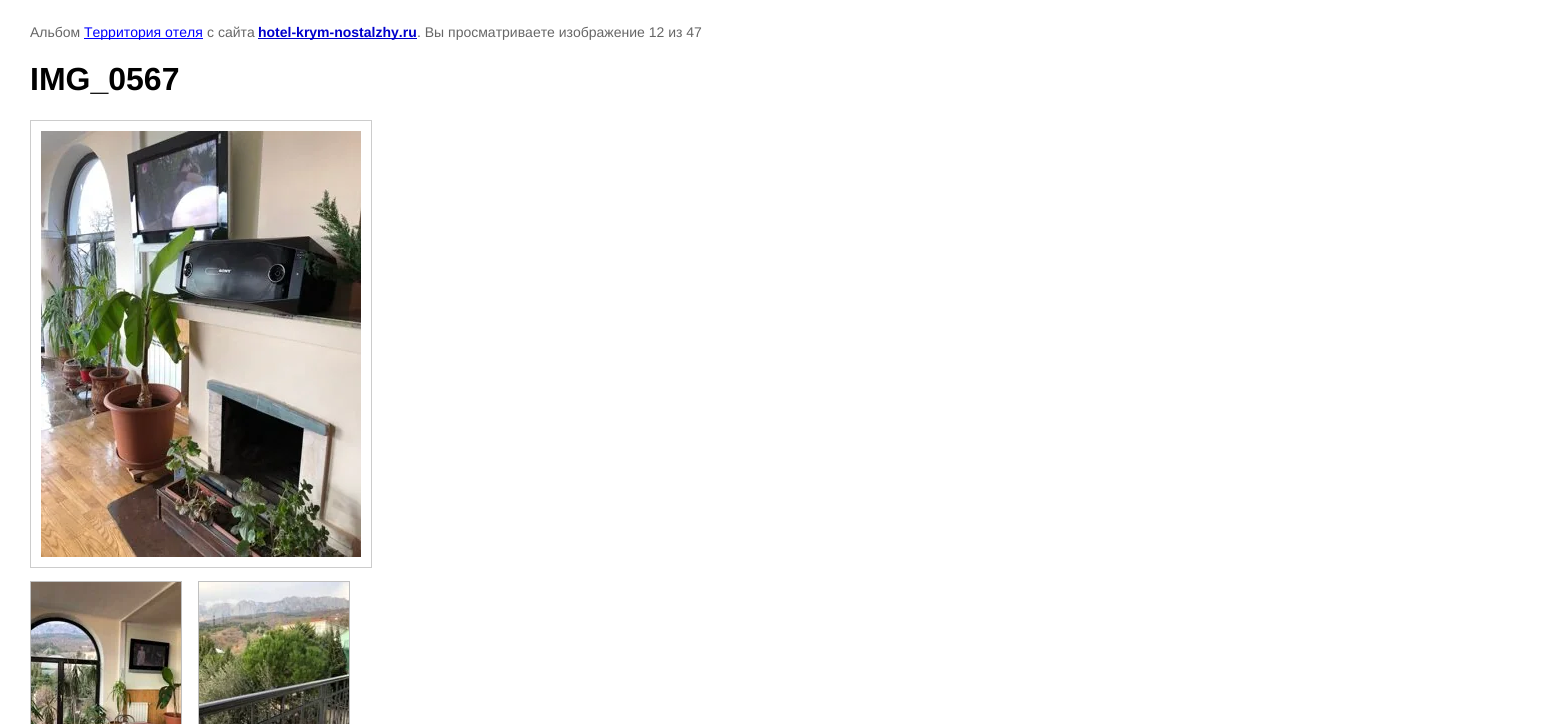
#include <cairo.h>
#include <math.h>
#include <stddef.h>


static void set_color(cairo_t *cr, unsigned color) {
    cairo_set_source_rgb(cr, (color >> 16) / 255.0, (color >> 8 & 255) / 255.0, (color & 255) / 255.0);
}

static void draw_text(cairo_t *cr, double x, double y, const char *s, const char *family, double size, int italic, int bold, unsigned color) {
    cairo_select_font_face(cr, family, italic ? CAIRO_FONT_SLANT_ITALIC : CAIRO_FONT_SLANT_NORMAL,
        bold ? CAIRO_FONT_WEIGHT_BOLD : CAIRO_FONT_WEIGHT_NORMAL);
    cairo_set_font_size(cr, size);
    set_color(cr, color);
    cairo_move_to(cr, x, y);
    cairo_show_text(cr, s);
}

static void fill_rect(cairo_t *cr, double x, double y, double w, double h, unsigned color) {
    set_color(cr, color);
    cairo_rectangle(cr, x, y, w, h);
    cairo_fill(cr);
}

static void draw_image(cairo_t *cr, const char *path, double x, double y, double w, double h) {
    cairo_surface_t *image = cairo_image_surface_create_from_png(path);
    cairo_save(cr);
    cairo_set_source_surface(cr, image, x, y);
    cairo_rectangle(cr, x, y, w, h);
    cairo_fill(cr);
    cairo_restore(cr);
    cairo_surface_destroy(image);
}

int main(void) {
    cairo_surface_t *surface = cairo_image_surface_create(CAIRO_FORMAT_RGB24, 1564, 724);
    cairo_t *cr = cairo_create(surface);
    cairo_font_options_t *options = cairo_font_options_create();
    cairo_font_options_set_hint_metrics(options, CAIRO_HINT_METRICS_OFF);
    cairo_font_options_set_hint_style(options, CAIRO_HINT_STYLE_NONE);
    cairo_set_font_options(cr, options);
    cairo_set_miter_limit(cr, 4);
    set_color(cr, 0xFFFFFF);
    cairo_paint(cr);
    draw_text(cr, 30, 37, "Альбом", "Liberation Sans", 14, 0, 0, 0x666666);
    fill_rect(cr, 84, 38, 119, 1, 0x0000FF);
    draw_text(cr, 84, 37, "Территория отеля", "Liberation Sans", 14, 0, 0, 0x0000FF);
    draw_text(cr, 207, 37, "с сайта", "Liberation Sans", 14, 0, 0, 0x666666);
    fill_rect(cr, 258, 38, 159, 1, 0x0000CC);
    draw_text(cr, 258, 37, "hotel-krym-nostalzhy.ru", "Liberation Sans", 14, 0, 1, 0x0000CC);
    draw_text(cr, 417, 37, ". Вы просматриваете изображение 12 из 47", "Liberation Sans", 14, 0, 0, 0x666666);
    draw_text(cr, 30, 90, "IMG_0567", "Liberation Sans", 32, 0, 1, 0x000000);
    cairo_rectangle(cr, 30.5, 120.5, 341, 447);
    set_color(cr, 0xCCCCCC);
    cairo_set_line_width(cr, 1);
    cairo_stroke(cr);
    draw_image(cr, "assets/img1.png", 41, 131, 320, 426);
    cairo_rectangle(cr, 30.5, 581.5, 151, 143);
    set_color(cr, 0xC0C0C0);
    cairo_stroke(cr);
    draw_image(cr, "assets/img2.png", 31, 582, 150, 142);
    cairo_rectangle(cr, 198.5, 581.5, 151, 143);
    cairo_stroke(cr);
    draw_image(cr, "assets/img3.png", 199, 582, 150, 142);
    cairo_surface_write_to_png(surface, "output.png");
    cairo_font_options_destroy(options);
    cairo_destroy(cr);
    cairo_surface_destroy(surface);
    return 0;
}
